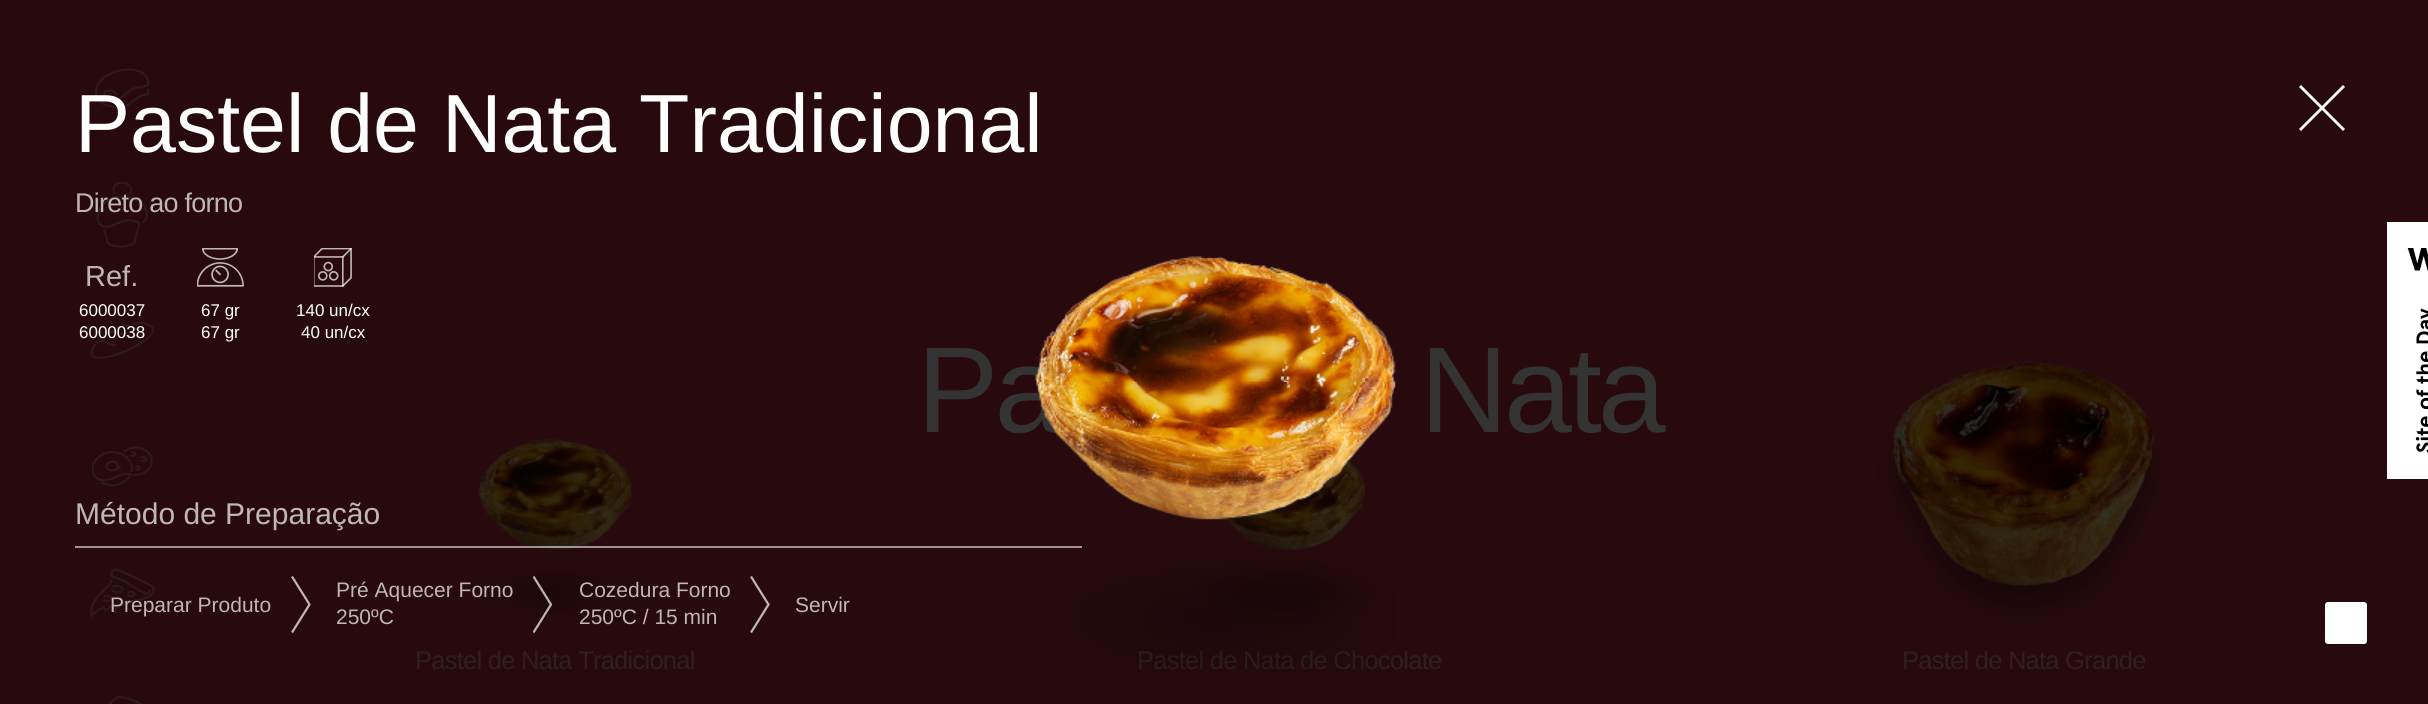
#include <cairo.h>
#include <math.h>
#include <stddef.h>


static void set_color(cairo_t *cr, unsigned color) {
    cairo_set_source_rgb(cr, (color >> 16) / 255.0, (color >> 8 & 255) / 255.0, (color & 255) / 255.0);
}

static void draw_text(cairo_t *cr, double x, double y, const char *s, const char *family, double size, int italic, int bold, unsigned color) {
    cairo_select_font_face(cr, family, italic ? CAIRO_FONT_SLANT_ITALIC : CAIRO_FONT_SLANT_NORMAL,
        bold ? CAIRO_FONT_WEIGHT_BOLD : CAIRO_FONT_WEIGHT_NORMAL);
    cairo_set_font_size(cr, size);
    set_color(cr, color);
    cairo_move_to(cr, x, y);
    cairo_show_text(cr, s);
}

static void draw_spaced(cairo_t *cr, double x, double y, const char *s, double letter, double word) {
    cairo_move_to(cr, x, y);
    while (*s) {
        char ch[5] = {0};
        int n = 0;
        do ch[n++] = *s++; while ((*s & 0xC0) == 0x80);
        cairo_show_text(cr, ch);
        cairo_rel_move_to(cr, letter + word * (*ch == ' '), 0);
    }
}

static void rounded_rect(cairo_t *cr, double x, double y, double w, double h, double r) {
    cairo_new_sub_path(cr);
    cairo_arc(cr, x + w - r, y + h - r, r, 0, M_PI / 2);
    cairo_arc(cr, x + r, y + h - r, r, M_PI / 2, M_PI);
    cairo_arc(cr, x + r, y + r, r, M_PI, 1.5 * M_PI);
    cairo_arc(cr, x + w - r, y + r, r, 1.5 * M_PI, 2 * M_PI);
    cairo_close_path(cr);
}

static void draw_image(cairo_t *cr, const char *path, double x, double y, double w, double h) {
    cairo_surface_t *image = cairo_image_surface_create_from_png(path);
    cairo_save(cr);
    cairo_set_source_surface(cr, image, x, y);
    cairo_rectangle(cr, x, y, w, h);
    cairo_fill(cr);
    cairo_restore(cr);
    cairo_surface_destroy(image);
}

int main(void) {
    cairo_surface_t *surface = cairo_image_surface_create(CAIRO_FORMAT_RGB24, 2428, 704);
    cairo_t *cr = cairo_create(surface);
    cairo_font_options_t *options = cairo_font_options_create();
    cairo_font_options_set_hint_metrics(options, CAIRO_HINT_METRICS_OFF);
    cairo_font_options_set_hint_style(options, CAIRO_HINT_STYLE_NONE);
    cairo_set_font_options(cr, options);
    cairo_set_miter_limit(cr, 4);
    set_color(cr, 0x280A0E);
    cairo_paint(cr);
    cairo_new_path(cr);
    cairo_move_to(cr, 117.5, 95);
    cairo_curve_to(cr, 111.5, 87.5, 99, 91, 106.5, 96.5);
    cairo_line_to(cr, 111.5, 98.5);
    cairo_curve_to(cr, 123, 100.5, 126, 91, 135.5, 88);
    cairo_curve_to(cr, 141.5, 85.5, 152.5, 88.5, 147, 78);
    cairo_curve_to(cr, 138, 60.5, 91.5, 72, 96.5, 94.5);
    cairo_curve_to(cr, 97.5, 99.5, 101, 103, 106, 105);
    cairo_line_to(cr, 114, 107);
    cairo_curve_to(cr, 117, 107.5, 120, 107.5, 123, 107);
    cairo_curve_to(cr, 132, 104.5, 137.5, 94, 148, 94.5);
    cairo_curve_to(cr, 148, 94.5, 149, 91, 147.5, 88.5);
    set_color(cr, 0x2C1A1C);
    cairo_set_line_width(cr, 2.1);
    cairo_stroke(cr);
    draw_image(cr, "assets/img1.png", 96, 182, 52, 66);
    cairo_new_path(cr);
    cairo_move_to(cr, 116, 344.5);
    cairo_curve_to(cr, 110, 348, 101, 332, 92.5, 349);
    cairo_curve_to(cr, 91.5, 351.5, 90.5, 355, 93, 356.5);
    cairo_curve_to(cr, 106, 364.5, 169.5, 334.5, 149, 325);
    cairo_curve_to(cr, 144.5, 322.5, 138, 322.5, 132.5, 324);
    cairo_stroke(cr);
    cairo_new_path(cr);
    cairo_move_to(cr, 140.5, 328.5);
    cairo_curve_to(cr, 136, 331, 133.5, 326.5, 127.5, 325.5);
    cairo_curve_to(cr, 123.5, 325, 118.5, 326, 116.5, 329);
    cairo_move_to(cr, 130, 336);
    cairo_curve_to(cr, 126, 338.5, 120, 330.5, 112, 331.5);
    cairo_curve_to(cr, 108.5, 332, 104.5, 334, 103.5, 338);
    cairo_stroke(cr);
    draw_image(cr, "assets/img2.png", 91, 446, 62, 41);
    draw_image(cr, "assets/img3.png", 90, 568, 65, 50);
    draw_image(cr, "assets/img4.png", 108, 695, 35, 9);
    draw_text(cr, 75, 152, "Pastel de Nata Tradicional", "Liberation Sans", 82.5, 0, 0, 0xFFFFFF);
    cairo_set_font_size(cr, 27);
    set_color(cr, 0xBEB6B7);
    draw_spaced(cr, 75, 212, "Direto ao forno", -0.75, 0);
    draw_text(cr, 85, 286, "Ref.", "Liberation Sans", 29, 0, 0, 0xBEB6B7);
    draw_text(cr, 79, 316, "6000037", "Liberation Sans", 17, 0, 0, 0xFFFFFF);
    draw_text(cr, 79, 338, "6000038", "Liberation Sans", 17, 0, 0, 0xFFFFFF);
    draw_image(cr, "assets/img5.png", 197, 248, 47, 39);
    draw_text(cr, 201, 316, "67 gr", "Liberation Sans", 17, 0, 0, 0xFFFFFF);
    draw_text(cr, 201, 338, "67 gr", "Liberation Sans", 17, 0, 0, 0xFFFFFF);
    draw_image(cr, "assets/img6.png", 314, 248, 38, 39);
    draw_text(cr, 296, 316, "140 un/cx", "Liberation Sans", 17, 0, 0, 0xFFFFFF);
    draw_text(cr, 301, 338, "40 un/cx", "Liberation Sans", 17, 0, 0, 0xFFFFFF);
    cairo_new_path(cr);
    cairo_move_to(cr, 2299, 129);
    cairo_line_to(cr, 2343, 85);
    cairo_line_to(cr, 2345, 87);
    cairo_line_to(cr, 2301, 131);
    cairo_close_path(cr);
    cairo_fill(cr);
    cairo_new_path(cr);
    cairo_move_to(cr, 2301, 85);
    cairo_line_to(cr, 2345, 129);
    cairo_line_to(cr, 2343, 131);
    cairo_line_to(cr, 2299, 87);
    cairo_close_path(cr);
    cairo_fill(cr);
    draw_text(cr, 75, 524, "Método de Preparação", "Liberation Sans", 30, 0, 0, 0xBEB6B7);
    cairo_set_font_size(cr, 122);
    set_color(cr, 0x333333);
    draw_spaced(cr, 917, 432, "Pa", -4, 0);
    draw_image(cr, "assets/img9.png", 1192, 458, 194, 171);
    cairo_set_font_size(cr, 25.5);
    set_color(cr, 0x2E1F20);
    draw_spaced(cr, 1137, 669, "Pastel de Nata de Chocolate", -0.75, 0);
    draw_image(cr, "assets/img7.png", 1034, 256, 362, 417);
    draw_image(cr, "assets/img8.png", 459, 438, 194, 191);
    cairo_set_source_rgba(cr, 1, 1, 1, 0.55);
    cairo_rectangle(cr, 75, 546, 1007, 2);
    cairo_fill(cr);
    draw_text(cr, 110, 612, "Preparar Produto", "Liberation Sans", 21, 0, 0, 0xBEB6B7);
    cairo_new_path(cr);
    cairo_move_to(cr, 292, 576.5);
    cairo_line_to(cr, 309.5, 604.5);
    cairo_line_to(cr, 292, 632.5);
    set_color(cr, 0xBFB6B7);
    cairo_set_line_width(cr, 2.2);
    cairo_stroke(cr);
    draw_text(cr, 336, 597, "Pré Aquecer Forno", "Liberation Sans", 21, 0, 0, 0xBEB6B7);
    cairo_save(cr);
    cairo_rectangle(cr, 533, 576, 19, 57);
    cairo_clip(cr);
    cairo_new_path(cr);
    cairo_move_to(cr, 533.5, 576.5);
    cairo_line_to(cr, 551, 604.5);
    cairo_line_to(cr, 533.5, 632.5);
    cairo_set_source_rgba(cr, 1, 1, 1, 0.7);
    cairo_stroke(cr);
    cairo_restore(cr);
    draw_text(cr, 336, 624, "250ºC", "Liberation Sans", 21, 0, 0, 0xBEB6B7);
    draw_text(cr, 579, 597, "Cozedura Forno", "Liberation Sans", 21, 0, 0, 0xBEB6B7);
    cairo_new_path(cr);
    cairo_move_to(cr, 751, 576.5);
    cairo_line_to(cr, 768.5, 604.5);
    cairo_line_to(cr, 751, 632.5);
    set_color(cr, 0xBFB6B7);
    cairo_stroke(cr);
    draw_text(cr, 579, 624, "250ºC / 15 min", "Liberation Sans", 21, 0, 0, 0xBEB6B7);
    draw_text(cr, 795, 612, "Servir", "Liberation Sans", 21, 0, 0, 0xBEB6B7);
    cairo_set_font_size(cr, 122);
    set_color(cr, 0x333333);
    draw_spaced(cr, 1420, 432, "Nata", -4, 0);
    cairo_set_font_size(cr, 25.5);
    set_color(cr, 0x2E1F20);
    draw_spaced(cr, 415, 669, "Pastel de Nata Tradicional", -0.75, 0);
    draw_image(cr, "assets/img10.png", 1871, 361, 305, 274);
    draw_spaced(cr, 1902, 669, "Pastel de Nata Grande", -0.75, 0);
    draw_image(cr, "assets/img11.png", 2387, 222, 41, 257);
    set_color(cr, 0xFFFFFF);
    rounded_rect(cr, 2325, 602, 42, 42, 3);
    cairo_fill(cr);
    cairo_surface_write_to_png(surface, "output.png");
    cairo_font_options_destroy(options);
    cairo_destroy(cr);
    cairo_surface_destroy(surface);
    return 0;
}
